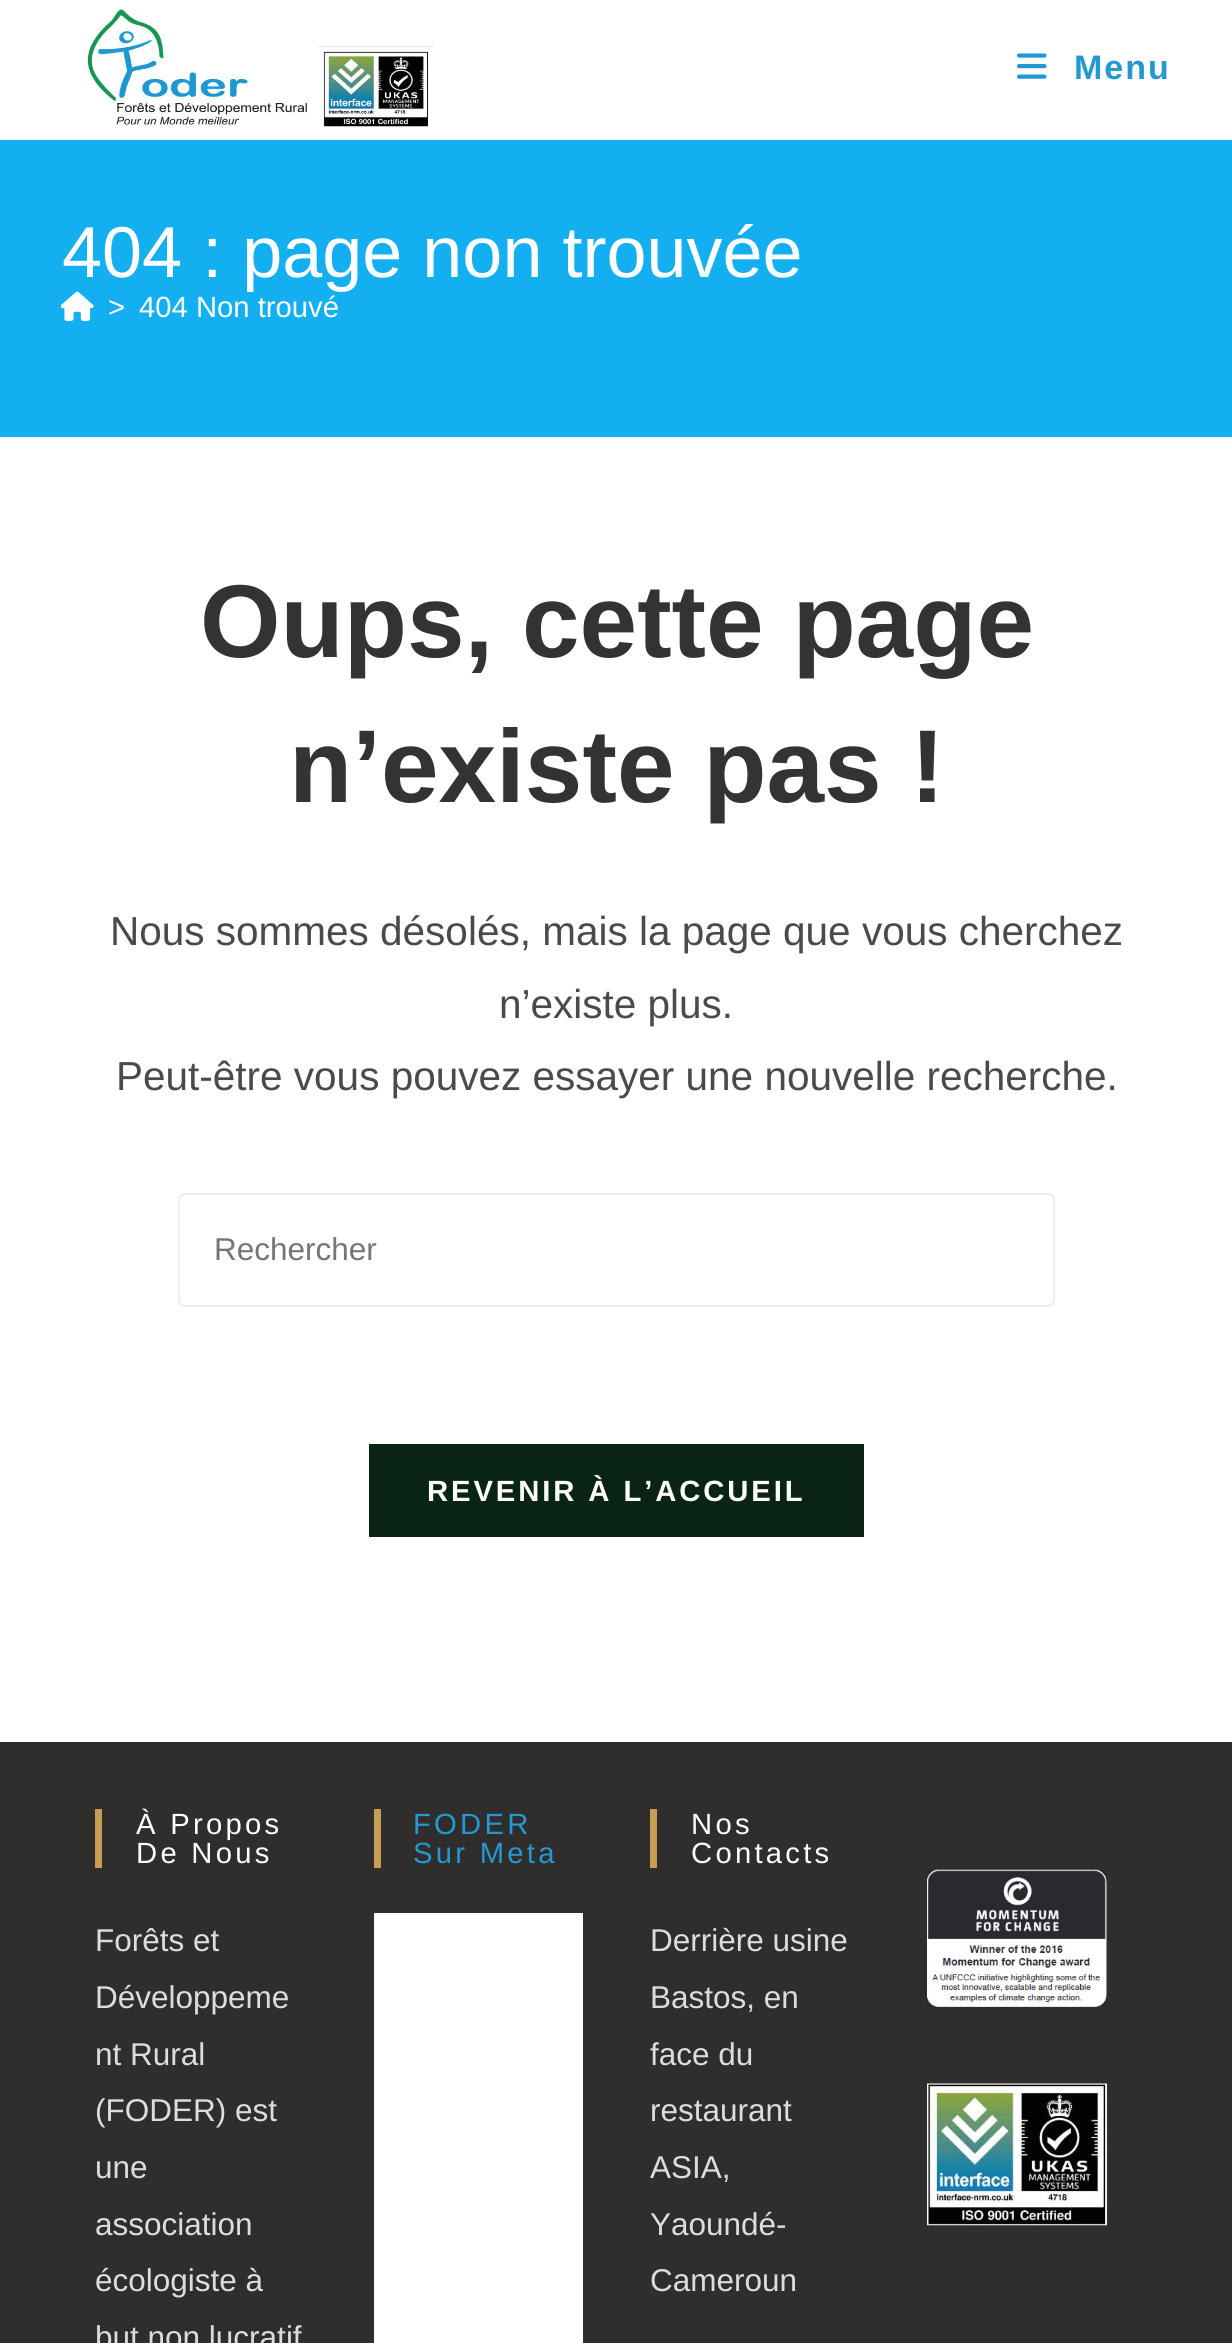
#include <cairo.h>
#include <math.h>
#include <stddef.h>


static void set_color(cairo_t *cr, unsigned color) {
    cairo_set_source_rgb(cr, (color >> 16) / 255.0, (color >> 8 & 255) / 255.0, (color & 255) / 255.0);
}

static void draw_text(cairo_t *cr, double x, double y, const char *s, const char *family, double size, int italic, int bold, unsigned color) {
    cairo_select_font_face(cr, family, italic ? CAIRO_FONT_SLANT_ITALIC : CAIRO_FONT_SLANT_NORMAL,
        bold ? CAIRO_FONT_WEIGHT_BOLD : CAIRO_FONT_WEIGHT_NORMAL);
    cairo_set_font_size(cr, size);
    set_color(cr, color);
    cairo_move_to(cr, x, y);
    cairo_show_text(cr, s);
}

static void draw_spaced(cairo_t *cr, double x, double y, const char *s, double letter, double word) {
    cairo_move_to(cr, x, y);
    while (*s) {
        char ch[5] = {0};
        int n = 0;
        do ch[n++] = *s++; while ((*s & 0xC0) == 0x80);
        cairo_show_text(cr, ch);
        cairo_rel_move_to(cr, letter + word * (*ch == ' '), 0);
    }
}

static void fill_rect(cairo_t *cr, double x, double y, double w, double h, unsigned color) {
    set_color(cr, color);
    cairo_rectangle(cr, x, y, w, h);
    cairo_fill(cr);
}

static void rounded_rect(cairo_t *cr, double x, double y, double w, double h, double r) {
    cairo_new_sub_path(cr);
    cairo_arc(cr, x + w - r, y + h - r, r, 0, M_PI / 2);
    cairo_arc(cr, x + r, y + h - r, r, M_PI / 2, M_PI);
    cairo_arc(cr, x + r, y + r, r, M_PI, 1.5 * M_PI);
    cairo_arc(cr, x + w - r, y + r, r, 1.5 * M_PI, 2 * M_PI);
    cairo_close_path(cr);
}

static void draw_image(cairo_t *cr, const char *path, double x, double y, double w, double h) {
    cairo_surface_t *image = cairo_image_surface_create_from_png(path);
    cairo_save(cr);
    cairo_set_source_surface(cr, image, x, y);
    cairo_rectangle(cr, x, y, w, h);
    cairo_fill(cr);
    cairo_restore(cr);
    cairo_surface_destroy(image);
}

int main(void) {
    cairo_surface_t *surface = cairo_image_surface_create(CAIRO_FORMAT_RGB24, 1232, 2343);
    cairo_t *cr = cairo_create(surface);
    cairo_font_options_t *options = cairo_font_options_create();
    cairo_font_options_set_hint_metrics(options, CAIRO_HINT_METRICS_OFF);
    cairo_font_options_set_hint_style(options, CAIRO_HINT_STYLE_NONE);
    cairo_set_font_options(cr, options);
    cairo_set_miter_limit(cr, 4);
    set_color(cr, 0xFFFFFF);
    cairo_paint(cr);
    draw_image(cr, "assets/img1.png", 86, 8, 348, 119);
    draw_image(cr, "assets/img2.png", 1017, 53, 30, 26);
    cairo_select_font_face(cr, "Liberation Sans", CAIRO_FONT_SLANT_NORMAL, CAIRO_FONT_WEIGHT_BOLD);
    cairo_set_font_size(cr, 34);
    set_color(cr, 0x2498D1);
    draw_spaced(cr, 1074, 79, "Menu", 2, 0);
    fill_rect(cr, 0, 140, 1232, 297, 0x13AFF0);
    draw_text(cr, 62, 277, "404 : page non trouvée", "Liberation Sans", 72, 0, 0, 0xFFFFFF);
    draw_image(cr, "assets/img3.png", 61, 291, 33, 30);
    draw_text(cr, 108, 317, ">", "Liberation Sans", 29.25, 0, 0, 0xFFFFFF);
    draw_text(cr, 139, 317, "404 Non trouvé", "Liberation Sans", 29.25, 0, 0, 0xFFFFFF);
    draw_text(cr, 200, 657, "Oups, cette page", "Liberation Sans", 103.5, 0, 1, 0x333333);
    draw_text(cr, 289, 802, "n’existe pas !", "Liberation Sans", 103.5, 0, 1, 0x333333);
    draw_text(cr, 110, 945, "Nous sommes désolés, mais la page que vous cherchez", "Liberation Sans", 40.5, 0, 0, 0x4A4A4A);
    draw_text(cr, 499, 1018, "n’existe plus.", "Liberation Sans", 40.5, 0, 0, 0x4A4A4A);
    draw_text(cr, 116, 1090, "Peut-être vous pouvez essayer une nouvelle recherche.", "Liberation Sans", 40.5, 0, 0, 0x4A4A4A);
    rounded_rect(cr, 179, 1194, 875, 112, 6);
    set_color(cr, 0xEDEDED);
    cairo_stroke(cr);
    draw_text(cr, 214, 1260, "Rechercher", "Liberation Sans", 31.5, 0, 0, 0x757575);
    fill_rect(cr, 369, 1444, 495, 93, 0x092415);
    cairo_select_font_face(cr, "Liberation Sans", CAIRO_FONT_SLANT_NORMAL, CAIRO_FONT_WEIGHT_BOLD);
    cairo_set_font_size(cr, 29.25);
    set_color(cr, 0xFFFFFF);
    draw_spaced(cr, 427, 1501, "REVENIR À L’ACCUEIL", 2.9, 0);
    fill_rect(cr, 0, 1742, 1232, 601, 0x302D2D);
    fill_rect(cr, 95, 1809, 7, 59, 0xC59D55);
    cairo_select_font_face(cr, "Liberation Sans", CAIRO_FONT_SLANT_NORMAL, CAIRO_FONT_WEIGHT_NORMAL);
    set_color(cr, 0xFFFFFF);
    draw_spaced(cr, 136, 1834, "À Propos", 3.25, 0);
    draw_spaced(cr, 136, 1863, "De Nous", 3.25, 0);
    draw_text(cr, 95, 1951, "Forêts et", "Liberation Sans", 31.5, 0, 0, 0xDDDDDD);
    draw_text(cr, 95, 2008, "Développeme", "Liberation Sans", 31.5, 0, 0, 0xDDDDDD);
    draw_text(cr, 95, 2065, "nt Rural", "Liberation Sans", 31.5, 0, 0, 0xDDDDDD);
    draw_text(cr, 95, 2121, "(FODER) est", "Liberation Sans", 31.5, 0, 0, 0xDDDDDD);
    draw_text(cr, 95, 2178, "une", "Liberation Sans", 31.5, 0, 0, 0xDDDDDD);
    draw_text(cr, 95, 2235, "association", "Liberation Sans", 31.5, 0, 0, 0xDDDDDD);
    draw_text(cr, 95, 2291, "écologiste à", "Liberation Sans", 31.5, 0, 0, 0xDDDDDD);
    draw_text(cr, 95, 2348, "but non lucratif", "Liberation Sans", 31.5, 0, 0, 0xDDDDDD);
    fill_rect(cr, 374, 1809, 7, 59, 0xC59D55);
    cairo_set_font_size(cr, 29.25);
    set_color(cr, 0x2498D1);
    draw_spaced(cr, 413, 1834, "FODER", 3.25, 0);
    draw_spaced(cr, 413, 1863, "Sur Meta", 3.25, 0);
    fill_rect(cr, 374, 1913, 209, 430, 0xFFFFFF);
    fill_rect(cr, 650, 1809, 7, 59, 0xC59D55);
    set_color(cr, 0xFFFFFF);
    draw_spaced(cr, 691, 1834, "Nos", 3.25, 0);
    draw_spaced(cr, 691, 1863, "Contacts", 3.25, 0);
    draw_text(cr, 650, 1951, "Derrière usine", "Liberation Sans", 31.5, 0, 0, 0xDDDDDD);
    draw_text(cr, 650, 2008, "Bastos, en", "Liberation Sans", 31.5, 0, 0, 0xDDDDDD);
    draw_text(cr, 650, 2065, "face du", "Liberation Sans", 31.5, 0, 0, 0xDDDDDD);
    draw_text(cr, 650, 2121, "restaurant", "Liberation Sans", 31.5, 0, 0, 0xDDDDDD);
    draw_text(cr, 650, 2178, "ASIA,", "Liberation Sans", 31.5, 0, 0, 0xDDDDDD);
    draw_text(cr, 650, 2235, "Yaoundé-", "Liberation Sans", 31.5, 0, 0, 0xDDDDDD);
    draw_text(cr, 650, 2291, "Cameroun", "Liberation Sans", 31.5, 0, 0, 0xDDDDDD);
    draw_image(cr, "assets/img4.png", 927, 1869, 180, 138);
    draw_image(cr, "assets/img5.png", 927, 2083, 180, 143);
    cairo_surface_write_to_png(surface, "output.png");
    cairo_font_options_destroy(options);
    cairo_destroy(cr);
    cairo_surface_destroy(surface);
    return 0;
}
